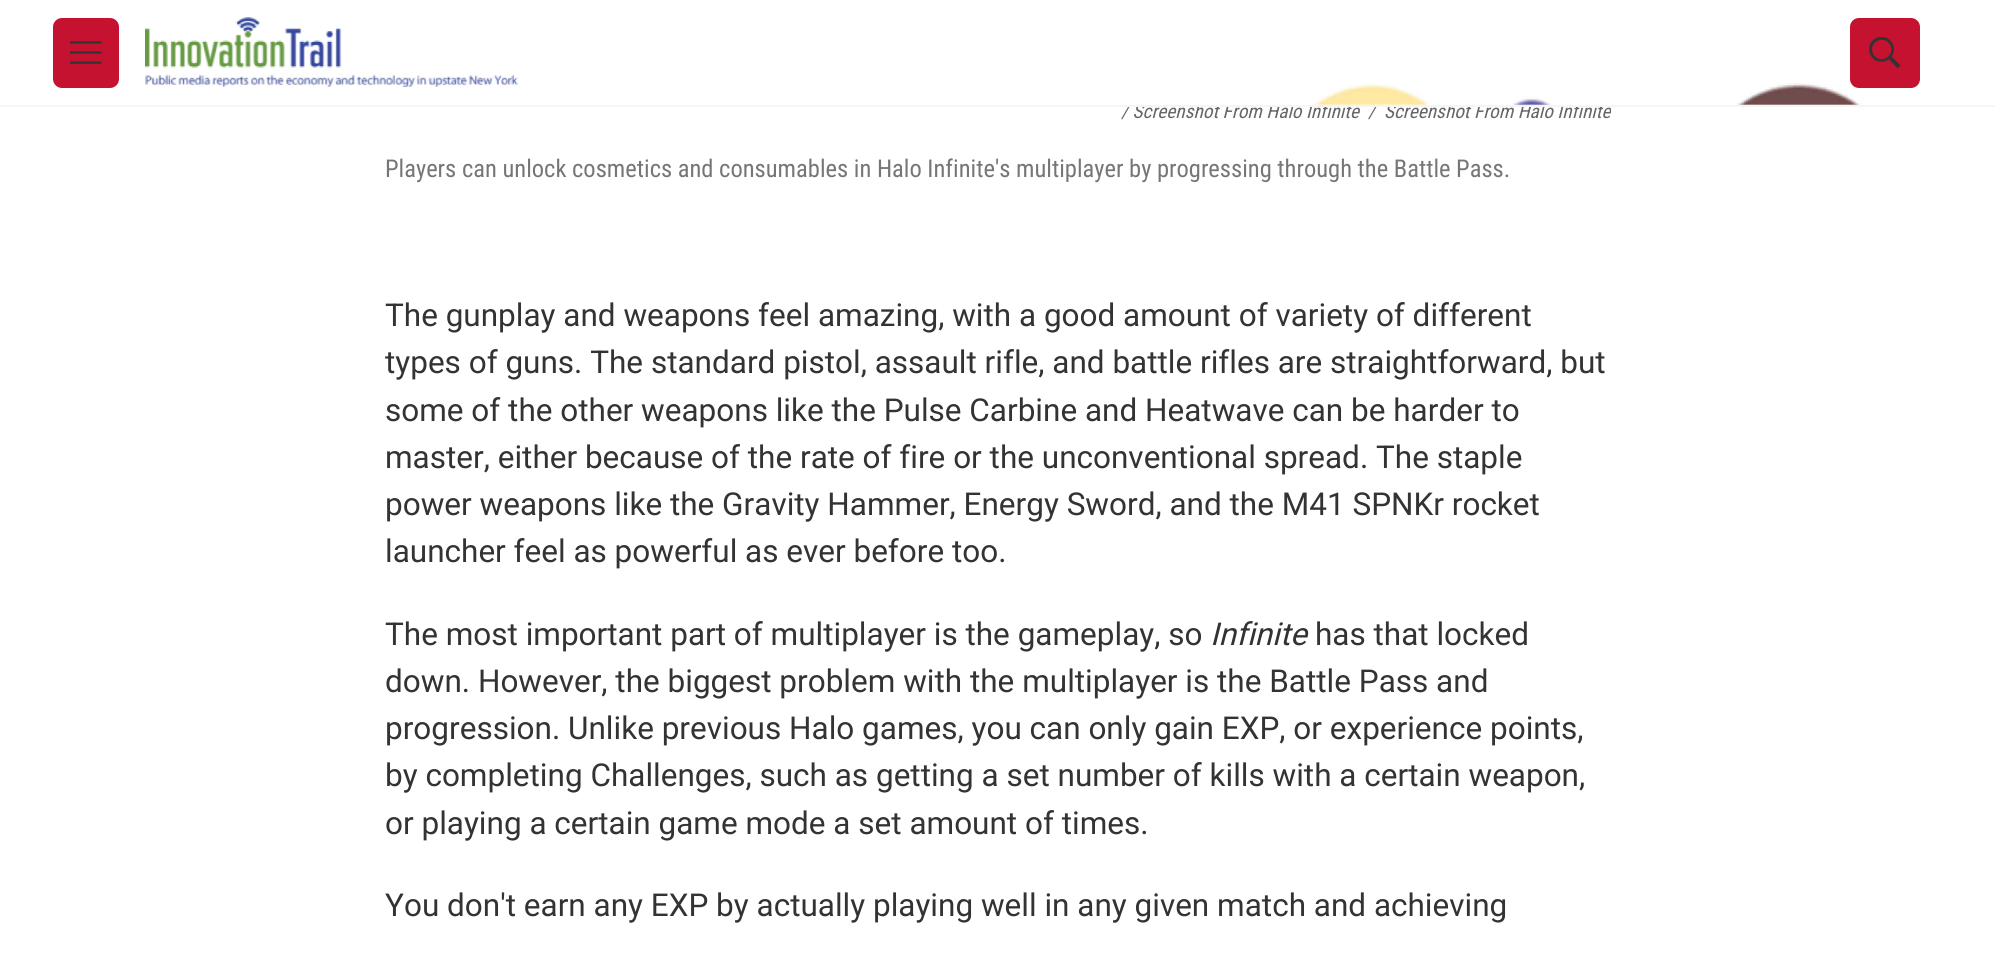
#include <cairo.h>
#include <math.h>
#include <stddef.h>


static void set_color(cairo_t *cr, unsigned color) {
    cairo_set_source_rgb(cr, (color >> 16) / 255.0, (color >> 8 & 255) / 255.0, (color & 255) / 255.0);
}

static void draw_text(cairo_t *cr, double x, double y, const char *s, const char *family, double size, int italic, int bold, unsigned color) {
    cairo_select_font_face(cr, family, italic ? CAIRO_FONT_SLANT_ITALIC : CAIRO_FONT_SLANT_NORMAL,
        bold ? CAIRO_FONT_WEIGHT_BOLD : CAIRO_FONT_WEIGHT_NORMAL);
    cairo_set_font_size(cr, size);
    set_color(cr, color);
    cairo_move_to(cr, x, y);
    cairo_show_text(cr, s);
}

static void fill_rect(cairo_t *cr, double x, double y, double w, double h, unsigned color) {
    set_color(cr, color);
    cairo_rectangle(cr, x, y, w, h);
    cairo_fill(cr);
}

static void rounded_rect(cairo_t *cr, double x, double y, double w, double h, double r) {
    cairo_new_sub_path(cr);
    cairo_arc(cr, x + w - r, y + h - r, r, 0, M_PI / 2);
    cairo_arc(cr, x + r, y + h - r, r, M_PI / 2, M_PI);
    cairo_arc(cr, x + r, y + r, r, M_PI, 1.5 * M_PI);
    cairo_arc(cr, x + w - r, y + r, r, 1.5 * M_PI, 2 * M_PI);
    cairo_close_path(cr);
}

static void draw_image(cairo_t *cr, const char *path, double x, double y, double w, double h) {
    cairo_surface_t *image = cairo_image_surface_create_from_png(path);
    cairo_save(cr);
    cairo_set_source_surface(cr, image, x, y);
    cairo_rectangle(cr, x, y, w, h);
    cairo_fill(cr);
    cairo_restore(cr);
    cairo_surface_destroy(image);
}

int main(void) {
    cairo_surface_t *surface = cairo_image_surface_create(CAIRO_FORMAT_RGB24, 1995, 953);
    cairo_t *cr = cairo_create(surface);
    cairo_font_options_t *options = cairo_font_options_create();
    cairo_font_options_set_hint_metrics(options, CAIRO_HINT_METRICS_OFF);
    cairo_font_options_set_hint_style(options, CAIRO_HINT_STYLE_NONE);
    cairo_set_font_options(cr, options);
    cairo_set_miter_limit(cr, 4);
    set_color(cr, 0xFFFFFF);
    cairo_paint(cr);
    draw_text(cr, 1121, 118, "/ Screenshot From Halo Infinite", "Roboto Condensed", 19.25, 1, 0, 0x666666);
    draw_text(cr, 1368, 118, "/", "Roboto Condensed", 19.25, 1, 0, 0x666666);
    draw_text(cr, 1384, 118, "Screenshot From Halo Infinite", "Roboto Condensed", 19.25, 1, 0, 0x666666);
    fill_rect(cr, 1129, 103, 469, 2, 0xFFFFFF);
    fill_rect(cr, 0, 105, 1995, 2, 0xF5F5F5);
    set_color(cr, 0xC41230);
    rounded_rect(cr, 53, 18, 66, 70, 9);
    cairo_fill(cr);
    draw_image(cr, "assets/img1.png", 70, 41, 32, 23);
    draw_image(cr, "assets/img2.png", 145, 17, 374, 70);
    draw_image(cr, "assets/img4.png", 1313, 82, 549, 23);
    rounded_rect(cr, 1850, 18, 70, 70, 9);
    cairo_fill(cr);
    draw_image(cr, "assets/img3.png", 1869, 37, 32, 31);
    draw_text(cr, 385, 177, "Players can unlock cosmetics and consumables in Halo Infinite's multiplayer by progressing through the Battle Pass.", "Roboto Condensed", 24.5, 0, 0, 0x767676);
    draw_text(cr, 385, 326, "The gunplay and weapons feel amazing, with a good amount of variety of different", "Roboto", 31.5, 0, 0, 0x333333);
    draw_text(cr, 385, 373, "types of guns. The standard pistol, assault rifle, and battle rifles are straightforward, but", "Roboto", 31.5, 0, 0, 0x333333);
    draw_text(cr, 385, 421, "some of the other weapons like the Pulse Carbine and Heatwave can be harder to", "Roboto", 31.5, 0, 0, 0x333333);
    draw_text(cr, 385, 468, "master, either because of the rate of fire or the unconventional spread. The staple", "Roboto", 31.5, 0, 0, 0x333333);
    draw_text(cr, 385, 515, "power weapons like the Gravity Hammer, Energy Sword, and the M41 SPNKr rocket", "Roboto", 31.5, 0, 0, 0x333333);
    draw_text(cr, 385, 562, "launcher feel as powerful as ever before too.", "Roboto", 31.5, 0, 0, 0x333333);
    draw_text(cr, 385, 645, "The most important part of multiplayer is the gameplay, so", "Roboto", 31.5, 0, 0, 0x333333);
    draw_text(cr, 1210, 645, "Infinite", "Roboto", 31.5, 1, 0, 0x333333);
    draw_text(cr, 1315, 645, "has that locked", "Roboto", 31.5, 0, 0, 0x333333);
    draw_text(cr, 385, 692, "down. However, the biggest problem with the multiplayer is the Battle Pass and", "Roboto", 31.5, 0, 0, 0x333333);
    draw_text(cr, 385, 739, "progression. Unlike previous Halo games, you can only gain EXP, or experience points,", "Roboto", 31.5, 0, 0, 0x333333);
    draw_text(cr, 385, 786, "by completing Challenges, such as getting a set number of kills with a certain weapon,", "Roboto", 31.5, 0, 0, 0x333333);
    draw_text(cr, 385, 834, "or playing a certain game mode a set amount of times.", "Roboto", 31.5, 0, 0, 0x333333);
    draw_text(cr, 385, 916, "You don't earn any EXP by actually playing well in any given match and achieving", "Roboto", 31.5, 0, 0, 0x333333);
    cairo_surface_write_to_png(surface, "output.png");
    cairo_font_options_destroy(options);
    cairo_destroy(cr);
    cairo_surface_destroy(surface);
    return 0;
}
